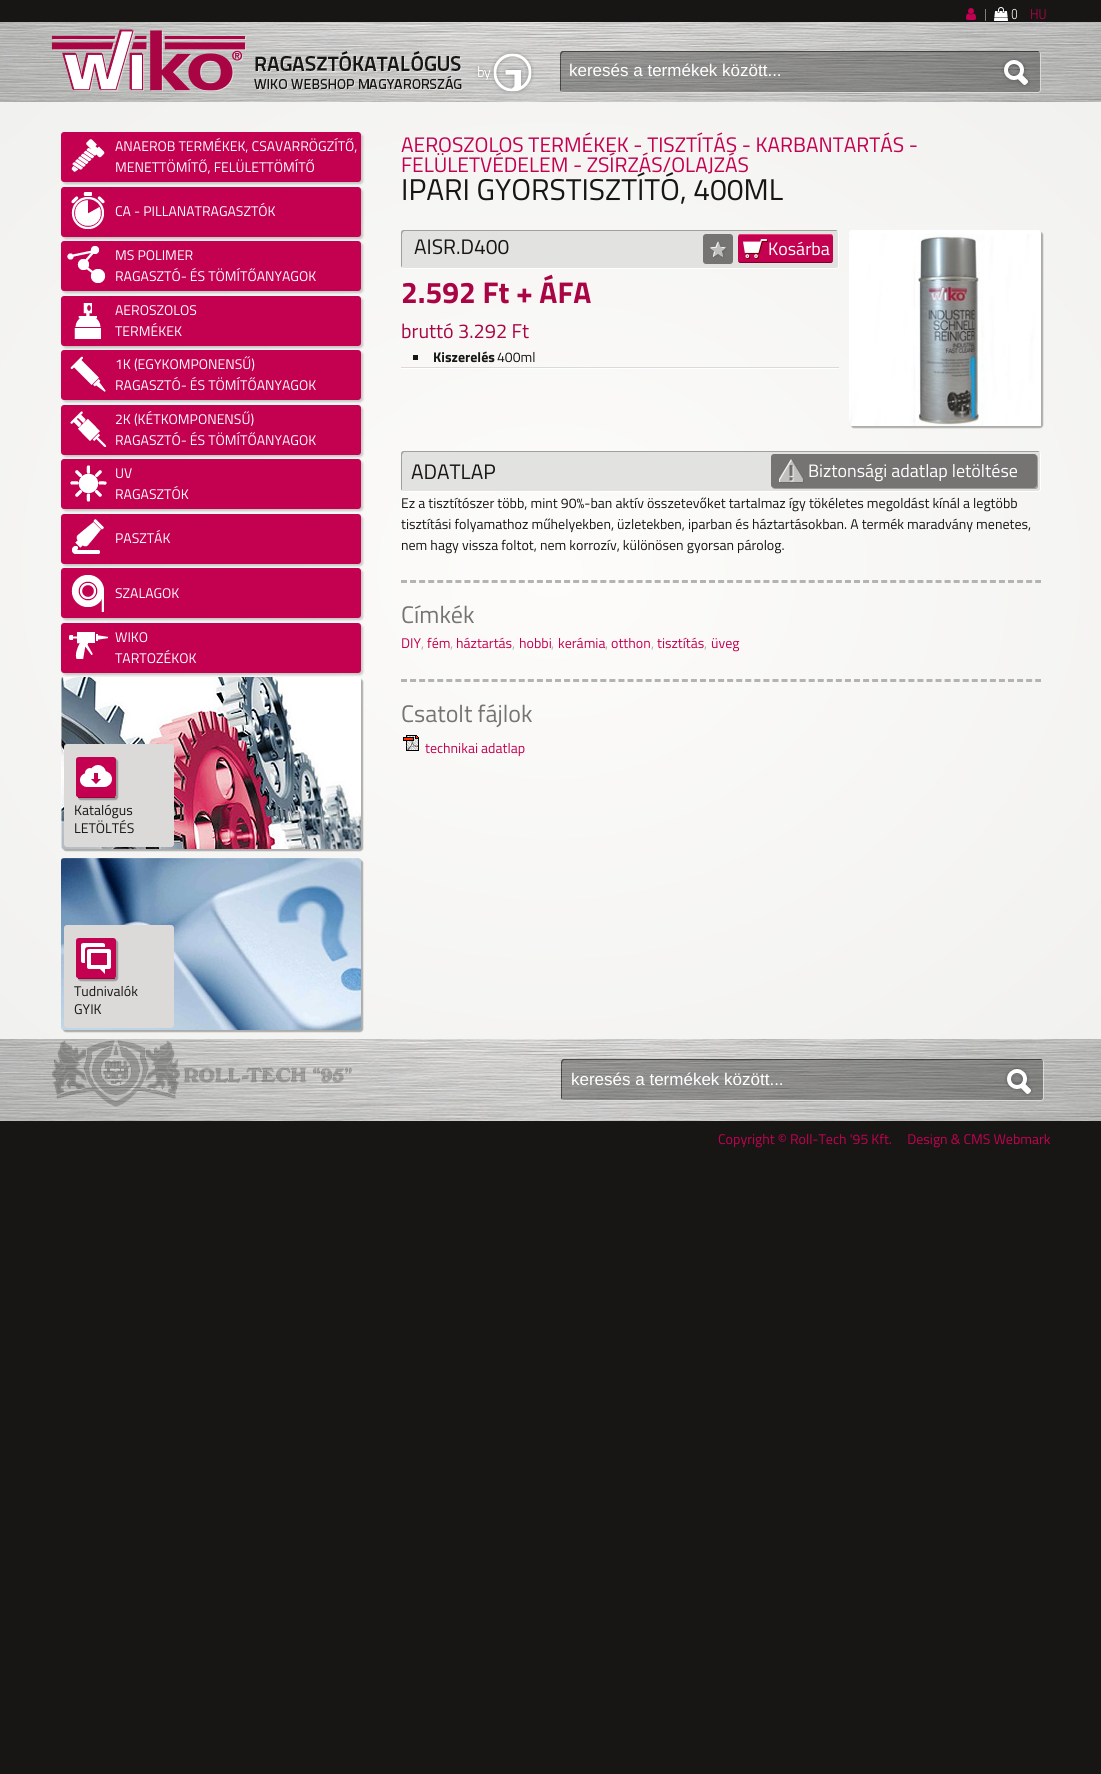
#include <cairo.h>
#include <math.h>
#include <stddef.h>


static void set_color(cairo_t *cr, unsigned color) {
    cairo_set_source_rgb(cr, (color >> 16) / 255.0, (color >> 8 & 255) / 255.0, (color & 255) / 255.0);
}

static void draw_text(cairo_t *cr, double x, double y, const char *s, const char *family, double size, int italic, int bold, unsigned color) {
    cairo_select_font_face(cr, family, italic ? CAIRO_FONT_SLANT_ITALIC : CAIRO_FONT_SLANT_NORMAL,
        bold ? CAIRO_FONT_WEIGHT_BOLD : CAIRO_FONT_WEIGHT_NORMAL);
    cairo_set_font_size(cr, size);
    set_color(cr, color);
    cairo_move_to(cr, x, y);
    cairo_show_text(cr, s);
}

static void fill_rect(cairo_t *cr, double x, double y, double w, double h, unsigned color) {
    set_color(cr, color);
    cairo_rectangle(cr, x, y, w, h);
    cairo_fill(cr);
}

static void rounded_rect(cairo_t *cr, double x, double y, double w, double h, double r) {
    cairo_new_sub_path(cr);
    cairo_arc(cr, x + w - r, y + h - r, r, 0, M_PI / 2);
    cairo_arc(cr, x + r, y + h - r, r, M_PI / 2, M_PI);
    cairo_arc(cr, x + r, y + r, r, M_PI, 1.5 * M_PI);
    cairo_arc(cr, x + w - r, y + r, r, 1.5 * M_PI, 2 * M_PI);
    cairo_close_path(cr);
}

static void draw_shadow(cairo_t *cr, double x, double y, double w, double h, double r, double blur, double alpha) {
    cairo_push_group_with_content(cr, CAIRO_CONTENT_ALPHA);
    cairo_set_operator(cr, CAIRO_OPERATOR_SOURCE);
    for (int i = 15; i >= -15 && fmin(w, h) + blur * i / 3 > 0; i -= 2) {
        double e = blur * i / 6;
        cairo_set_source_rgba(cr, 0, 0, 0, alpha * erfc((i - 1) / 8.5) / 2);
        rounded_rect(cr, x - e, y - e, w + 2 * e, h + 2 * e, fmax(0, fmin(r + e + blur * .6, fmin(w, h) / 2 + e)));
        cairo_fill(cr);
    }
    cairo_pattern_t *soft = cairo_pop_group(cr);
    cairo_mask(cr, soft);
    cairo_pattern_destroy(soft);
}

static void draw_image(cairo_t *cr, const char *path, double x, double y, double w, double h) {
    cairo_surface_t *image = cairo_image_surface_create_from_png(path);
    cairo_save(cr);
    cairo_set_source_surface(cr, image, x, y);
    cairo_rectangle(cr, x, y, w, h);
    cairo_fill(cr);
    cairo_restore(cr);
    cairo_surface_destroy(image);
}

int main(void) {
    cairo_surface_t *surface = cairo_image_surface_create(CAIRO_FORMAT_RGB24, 1101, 1774);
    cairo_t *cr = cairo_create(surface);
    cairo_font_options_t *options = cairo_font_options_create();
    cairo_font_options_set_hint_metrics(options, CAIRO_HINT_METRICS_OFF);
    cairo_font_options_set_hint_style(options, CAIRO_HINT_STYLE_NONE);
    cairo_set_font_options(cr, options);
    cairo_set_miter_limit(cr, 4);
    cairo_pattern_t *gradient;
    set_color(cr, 0x171615);
    cairo_paint(cr);
    draw_image(cr, "assets/img1.png", 966, 8, 10, 12);
    draw_text(cr, 984, 19, "|", "Roboto Condensed Light", 14, 0, 0, 0xACADAD);
    draw_image(cr, "assets/img2.png", 994, 7, 14, 14);
    draw_text(cr, 1011, 19, "0", "Roboto Condensed Light", 14, 0, 0, 0xFFFFFF);
    draw_text(cr, 1030, 19, "HU", "Roboto Condensed Light", 14, 0, 0, 0xC40050);
    draw_image(cr, "assets/img3.png", 0, 22, 1101, 80);
    draw_image(cr, "assets/img4.png", 51, 29, 483, 65);
    cairo_set_source_rgba(cr, 0, 0, 0, 0.3);
    rounded_rect(cr, 560, 51, 481, 42, 3);
    cairo_fill(cr);
    cairo_set_source_rgba(cr, 0, 0, 0, 0.5);
    cairo_new_path(cr);
    cairo_move_to(cr, 564, 52);
    cairo_line_to(cr, 1040, 52);
    cairo_line_to(cr, 1038, 51);
    cairo_line_to(cr, 562, 51);
    cairo_line_to(cr, 561, 52);
    cairo_line_to(cr, 560, 54);
    cairo_line_to(cr, 560, 90);
    cairo_line_to(cr, 561, 92);
    cairo_line_to(cr, 561, 61);
    cairo_curve_to(cr, 561, 58, 560, 52, 564, 52);
    cairo_close_path(cr);
    cairo_fill(cr);
    set_color(cr, 0xDBDAD8);
    cairo_set_fill_rule(cr, CAIRO_FILL_RULE_EVEN_ODD);
    cairo_new_path(cr);
    cairo_move_to(cr, 563, 51);
    cairo_line_to(cr, 1038, 51);
    cairo_curve_to(cr, 1040, 51, 1041, 52, 1041, 54);
    cairo_line_to(cr, 1041, 90);
    cairo_curve_to(cr, 1041, 92, 1040, 93, 1038, 93);
    cairo_line_to(cr, 563, 93);
    cairo_curve_to(cr, 561, 93, 560, 92, 560, 90);
    cairo_line_to(cr, 560, 54);
    cairo_curve_to(cr, 560, 52, 561, 51, 563, 51);
    cairo_close_path(cr);
    cairo_move_to(cr, 563, 51);
    cairo_line_to(cr, 1038, 51);
    cairo_curve_to(cr, 1039, 51, 1040, 52, 1040, 54);
    cairo_line_to(cr, 1040, 90);
    cairo_curve_to(cr, 1040, 91, 1039, 92, 1038, 92);
    cairo_line_to(cr, 563, 92);
    cairo_curve_to(cr, 561, 92, 560, 91, 560, 90);
    cairo_line_to(cr, 560, 54);
    cairo_curve_to(cr, 560, 52, 561, 51, 563, 51);
    cairo_close_path(cr);
    cairo_fill(cr);
    draw_text(cr, 569, 76, "keresés a termékek között...", "Liberation Sans", 17, 0, 0, 0xFFFFFF);
    draw_image(cr, "assets/img5.png", 1001, 57, 29, 30);
    gradient = cairo_pattern_create_radial(0, 0, 0, 0, 0, 1);
    cairo_pattern_set_matrix(gradient, &(cairo_matrix_t){1.0 / 779, 0, 0, 1.0 / 663, -1.0 * 551 / 779, -1.0 * 571 / 663});
    cairo_pattern_add_color_stop_rgba(gradient, 0, 0.992, 0.988, 0.98, 1);
    cairo_pattern_add_color_stop_rgba(gradient, 1, 0.945, 0.945, 0.937, 1);
    cairo_set_source(cr, gradient);
    cairo_pattern_destroy(gradient);
    cairo_rectangle(cr, 0, 102, 1101, 937);
    cairo_fill(cr);
    set_color(cr, 0x000000);
    draw_shadow(cr, 63, 134, 300, 50, 3, 1, 0.2);
    set_color(cr, 0xC40050);
    rounded_rect(cr, 61, 132, 300, 50, 3);
    cairo_fill(cr);
    draw_image(cr, "assets/img6.png", 64, 132, 48, 48);
    draw_text(cr, 115, 151, "ANAEROB TERMÉKEK, CSAVARRÖGZÍTŐ,", "Titillium Web", 14, 0, 0, 0xFFFFFF);
    draw_text(cr, 115, 172, "MENETTÖMÍTŐ, FELÜLETTÖMÍTŐ", "Titillium Web", 14, 0, 0, 0xFFFFFF);
    set_color(cr, 0x000000);
    draw_shadow(cr, 63, 189, 300, 50, 3, 1, 0.2);
    set_color(cr, 0xC40050);
    rounded_rect(cr, 61, 187, 300, 50, 3);
    cairo_fill(cr);
    draw_image(cr, "assets/img7.png", 64, 187, 48, 48);
    draw_text(cr, 115, 216, "CA - PILLANATRAGASZTÓK", "Titillium Web", 14, 0, 0, 0xFFFFFF);
    set_color(cr, 0x000000);
    draw_shadow(cr, 63, 243, 300, 50, 3, 1, 0.2);
    set_color(cr, 0xC40050);
    rounded_rect(cr, 61, 241, 300, 50, 3);
    cairo_fill(cr);
    draw_image(cr, "assets/img8.png", 64, 241, 48, 48);
    draw_text(cr, 115, 260, "MS POLIMER", "Titillium Web", 14, 0, 0, 0xFFFFFF);
    draw_text(cr, 115, 281, "RAGASZTÓ- ÉS TÖMÍTŐANYAGOK", "Titillium Web", 14, 0, 0, 0xFFFFFF);
    set_color(cr, 0x000000);
    draw_shadow(cr, 63, 298, 300, 50, 3, 1, 0.2);
    set_color(cr, 0xC40050);
    rounded_rect(cr, 61, 296, 300, 50, 3);
    cairo_fill(cr);
    draw_image(cr, "assets/img9.png", 64, 296, 48, 48);
    draw_text(cr, 115, 315, "AEROSZOLOS", "Titillium Web", 14, 0, 0, 0xFFFFFF);
    draw_text(cr, 115, 336, "TERMÉKEK", "Titillium Web", 14, 0, 0, 0xFFFFFF);
    set_color(cr, 0x000000);
    draw_shadow(cr, 63, 352, 300, 50, 3, 1, 0.2);
    set_color(cr, 0xC40050);
    rounded_rect(cr, 61, 350, 300, 50, 3);
    cairo_fill(cr);
    draw_image(cr, "assets/img10.png", 70, 356, 36, 36);
    draw_text(cr, 115, 369, "1K (EGYKOMPONENSŰ)", "Titillium Web", 14, 0, 0, 0xFFFFFF);
    draw_text(cr, 115, 390, "RAGASZTÓ- ÉS TÖMÍTŐANYAGOK", "Titillium Web", 14, 0, 0, 0xFFFFFF);
    set_color(cr, 0x000000);
    draw_shadow(cr, 63, 407, 300, 50, 3, 1, 0.2);
    set_color(cr, 0xC40050);
    rounded_rect(cr, 61, 405, 300, 50, 3);
    cairo_fill(cr);
    draw_image(cr, "assets/img11.png", 64, 405, 48, 48);
    draw_text(cr, 115, 424, "2K (KÉTKOMPONENSŰ)", "Titillium Web", 14, 0, 0, 0xFFFFFF);
    draw_text(cr, 115, 445, "RAGASZTÓ- ÉS TÖMÍTŐANYAGOK", "Titillium Web", 14, 0, 0, 0xFFFFFF);
    set_color(cr, 0x000000);
    draw_shadow(cr, 63, 461, 300, 50, 3, 1, 0.2);
    set_color(cr, 0xC40050);
    rounded_rect(cr, 61, 459, 300, 50, 3);
    cairo_fill(cr);
    draw_image(cr, "assets/img12.png", 64, 459, 48, 48);
    draw_text(cr, 115, 478, "UV", "Titillium Web", 14, 0, 0, 0xFFFFFF);
    draw_text(cr, 115, 499, "RAGASZTÓK", "Titillium Web", 14, 0, 0, 0xFFFFFF);
    set_color(cr, 0x000000);
    draw_shadow(cr, 63, 516, 300, 50, 3, 1, 0.2);
    set_color(cr, 0xC40050);
    rounded_rect(cr, 61, 514, 300, 50, 3);
    cairo_fill(cr);
    draw_image(cr, "assets/img13.png", 64, 514, 48, 48);
    draw_text(cr, 115, 543, "PASZTÁK", "Titillium Web", 14, 0, 0, 0xFFFFFF);
    set_color(cr, 0x000000);
    draw_shadow(cr, 63, 570, 300, 50, 3, 1, 0.2);
    set_color(cr, 0xC40050);
    rounded_rect(cr, 61, 568, 300, 50, 3);
    cairo_fill(cr);
    draw_image(cr, "assets/img14.png", 64, 568, 48, 48);
    draw_text(cr, 115, 598, "SZALAGOK", "Titillium Web", 14, 0, 0, 0xFFFFFF);
    set_color(cr, 0x000000);
    draw_shadow(cr, 63, 625, 300, 50, 3, 1, 0.2);
    set_color(cr, 0xC40050);
    rounded_rect(cr, 61, 623, 300, 50, 3);
    cairo_fill(cr);
    draw_image(cr, "assets/img15.png", 64, 623, 48, 48);
    draw_text(cr, 115, 642, "WIKO", "Titillium Web", 14, 0, 0, 0xFFFFFF);
    draw_text(cr, 115, 663, "TARTOZÉKOK", "Titillium Web", 14, 0, 0, 0xFFFFFF);
    set_color(cr, 0x000000);
    draw_shadow(cr, 63, 679, 300, 172, 3, 0.5, 0.3);
    draw_image(cr, "assets/img16.png", 61, 677, 300, 172);
    set_color(cr, 0xDBDAD8);
    rounded_rect(cr, 64, 744, 110, 103, 3);
    cairo_fill(cr);
    set_color(cr, 0x000000);
    draw_shadow(cr, 78, 759, 40, 41, 3, 0.5, 0.3);
    fill_rect(cr, 78, 797, 37, 1, 0x9E003D);
    draw_image(cr, "assets/img17.png", 76, 757, 40, 40);
    draw_text(cr, 74, 815, "Katalógus", "Titillium Web", 14, 0, 0, 0x171615);
    draw_text(cr, 74, 833, "LETÖLTÉS", "Titillium Web", 14, 0, 0, 0x171615);
    set_color(cr, 0x000000);
    draw_shadow(cr, 63, 860, 300, 172, 3, 0.5, 0.3);
    draw_image(cr, "assets/img18.png", 61, 858, 300, 172);
    set_color(cr, 0xDBDAD8);
    rounded_rect(cr, 64, 925, 110, 103, 3);
    cairo_fill(cr);
    set_color(cr, 0x000000);
    draw_shadow(cr, 78, 940, 40, 41, 3, 0.5, 0.3);
    fill_rect(cr, 78, 978, 37, 1, 0x9E003D);
    draw_image(cr, "assets/img19.png", 76, 938, 40, 40);
    draw_text(cr, 74, 996, "Tudnivalók", "Titillium Web", 14, 0, 0, 0x171615);
    draw_text(cr, 74, 1014, "GYIK", "Titillium Web", 14, 0, 0, 0x171615);
    draw_text(cr, 401, 152, "AEROSZOLOS TERMÉKEK - TISZTÍTÁS - KARBANTARTÁS -", "Titillium Web", 21, 0, 0, 0xC40050);
    draw_text(cr, 401, 172, "FELÜLETVÉDELEM - ZSÍRZÁS/OLAJZÁS", "Titillium Web", 21, 0, 0, 0xC40050);
    draw_text(cr, 401, 200, "IPARI GYORSTISZTÍTÓ, 400ML", "Titillium Web", 30, 0, 0, 0x171615);
    set_color(cr, 0xE2E2E0);
    rounded_rect(cr, 401, 230, 438, 39, 3);
    cairo_fill(cr);
    cairo_set_source_rgba(cr, 0, 0, 0, 0.3);
    cairo_set_fill_rule(cr, CAIRO_FILL_RULE_WINDING);
    cairo_new_path(cr);
    cairo_move_to(cr, 405, 231);
    cairo_line_to(cr, 838, 231);
    cairo_line_to(cr, 836, 230);
    cairo_line_to(cr, 404, 230);
    cairo_curve_to(cr, 402, 230, 401, 231, 401, 233);
    cairo_line_to(cr, 401, 266);
    cairo_line_to(cr, 402, 268);
    cairo_line_to(cr, 402, 240);
    cairo_curve_to(cr, 402, 237, 401, 231, 405, 231);
    cairo_close_path(cr);
    cairo_fill(cr);
    set_color(cr, 0xFFFFFF);
    cairo_set_fill_rule(cr, CAIRO_FILL_RULE_EVEN_ODD);
    cairo_new_path(cr);
    cairo_move_to(cr, 404, 230);
    cairo_line_to(cr, 836, 230);
    cairo_curve_to(cr, 838, 230, 839, 231, 839, 233);
    cairo_line_to(cr, 839, 266);
    cairo_curve_to(cr, 839, 268, 838, 269, 836, 269);
    cairo_line_to(cr, 404, 269);
    cairo_curve_to(cr, 402, 269, 401, 268, 401, 266);
    cairo_line_to(cr, 401, 233);
    cairo_curve_to(cr, 401, 231, 402, 230, 404, 230);
    cairo_close_path(cr);
    cairo_move_to(cr, 404, 230);
    cairo_line_to(cr, 836, 230);
    cairo_curve_to(cr, 837, 230, 838, 231, 838, 233);
    cairo_line_to(cr, 838, 266);
    cairo_curve_to(cr, 838, 267, 837, 268, 836, 268);
    cairo_line_to(cr, 404, 268);
    cairo_curve_to(cr, 402, 268, 401, 267, 401, 266);
    cairo_line_to(cr, 401, 233);
    cairo_curve_to(cr, 401, 231, 402, 230, 404, 230);
    cairo_close_path(cr);
    cairo_fill(cr);
    draw_text(cr, 414, 254, "AISR.D400", "Titillium Web", 21, 0, 0, 0x171615);
    set_color(cr, 0x757473);
    rounded_rect(cr, 703, 234, 30, 30, 3);
    cairo_fill(cr);
    draw_image(cr, "assets/img20.png", 710, 241, 17, 17);
    set_color(cr, 0xC40050);
    rounded_rect(cr, 738, 234, 95, 29, 3);
    cairo_fill(cr);
    draw_image(cr, "assets/img21.png", 743, 239, 25, 20);
    set_color(cr, 0xE83C6C);
    cairo_set_fill_rule(cr, CAIRO_FILL_RULE_WINDING);
    cairo_new_path(cr);
    cairo_move_to(cr, 741, 234);
    cairo_curve_to(cr, 739, 234, 738, 235, 738, 237);
    cairo_curve_to(cr, 738, 236, 739, 235, 741, 235);
    cairo_line_to(cr, 830, 235);
    cairo_curve_to(cr, 832, 235, 833, 236, 833, 237);
    cairo_curve_to(cr, 833, 235, 832, 234, 830, 234);
    cairo_close_path(cr);
    cairo_fill(cr);
    set_color(cr, 0x7C0125);
    cairo_new_path(cr);
    cairo_move_to(cr, 830, 263);
    cairo_curve_to(cr, 832, 263, 833, 262, 833, 260);
    cairo_curve_to(cr, 833, 261, 832, 262, 830, 262);
    cairo_line_to(cr, 741, 262);
    cairo_curve_to(cr, 739, 262, 738, 261, 738, 260);
    cairo_curve_to(cr, 738, 262, 739, 263, 741, 263);
    cairo_close_path(cr);
    cairo_fill(cr);
    draw_text(cr, 768, 255, "Kosárba", "Titillium Web", 18, 0, 0, 0xFFFFFF);
    draw_text(cr, 401, 303, "2.592 Ft + ÁFA", "Titillium Web", 30, 0, 1, 0xA90545);
    draw_text(cr, 401, 338, "bruttó 3.292 Ft", "Titillium Web", 20, 0, 0, 0xA90545);
    fill_rect(cr, 401, 368, 438, 1, 0xFFFFFF);
    fill_rect(cr, 401, 367, 438, 1, 0xDBDAD8);
    fill_rect(cr, 413, 355, 5, 5, 0x171615);
    draw_text(cr, 433, 362, "Kiszerelés", "Titillium Web", 14, 0, 1, 0x171615);
    draw_text(cr, 497, 362, "400ml", "Titillium Web", 14, 0, 0, 0x171615);
    set_color(cr, 0x000000);
    draw_shadow(cr, 851, 232, 192, 196, 3, 0.5, 0.3);
    set_color(cr, 0xFFFFFF);
    rounded_rect(cr, 849, 230, 192, 196, 3);
    cairo_fill(cr);
    draw_image(cr, "assets/img22.png", 849, 234, 192, 192);
    set_color(cr, 0xE2E2E0);
    rounded_rect(cr, 401, 451, 640, 41, 3);
    cairo_fill(cr);
    cairo_set_source_rgba(cr, 0, 0, 0, 0.3);
    cairo_new_path(cr);
    cairo_move_to(cr, 405, 452);
    cairo_line_to(cr, 1040, 452);
    cairo_curve_to(cr, 1039, 451, 1039, 451, 1038, 451);
    cairo_line_to(cr, 404, 451);
    cairo_curve_to(cr, 402, 451, 401, 452, 401, 454);
    cairo_line_to(cr, 401, 489);
    cairo_curve_to(cr, 401, 490, 401, 490, 402, 491);
    cairo_line_to(cr, 402, 461);
    cairo_curve_to(cr, 402, 458, 401, 452, 405, 452);
    cairo_close_path(cr);
    cairo_fill(cr);
    set_color(cr, 0xFFFFFF);
    cairo_set_fill_rule(cr, CAIRO_FILL_RULE_EVEN_ODD);
    cairo_new_path(cr);
    cairo_move_to(cr, 404, 451);
    cairo_line_to(cr, 1038, 451);
    cairo_curve_to(cr, 1040, 451, 1041, 452, 1041, 454);
    cairo_line_to(cr, 1041, 489);
    cairo_curve_to(cr, 1041, 491, 1040, 492, 1038, 492);
    cairo_line_to(cr, 404, 492);
    cairo_curve_to(cr, 402, 492, 401, 491, 401, 489);
    cairo_line_to(cr, 401, 454);
    cairo_curve_to(cr, 401, 452, 402, 451, 404, 451);
    cairo_close_path(cr);
    cairo_move_to(cr, 404, 451);
    cairo_line_to(cr, 1038, 451);
    cairo_curve_to(cr, 1039, 451, 1040, 452, 1040, 454);
    cairo_line_to(cr, 1040, 489);
    cairo_curve_to(cr, 1040, 490, 1039, 491, 1038, 491);
    cairo_line_to(cr, 404, 491);
    cairo_curve_to(cr, 402, 491, 401, 490, 401, 489);
    cairo_line_to(cr, 401, 454);
    cairo_curve_to(cr, 401, 452, 402, 451, 404, 451);
    cairo_close_path(cr);
    cairo_fill(cr);
    draw_text(cr, 411, 479, "ADATLAP", "Titillium Web", 21, 0, 0, 0x171615);
    set_color(cr, 0x9E9E9D);
    cairo_set_fill_rule(cr, CAIRO_FILL_RULE_WINDING);
    cairo_new_path(cr);
    cairo_move_to(cr, 772, 488);
    cairo_curve_to(cr, 773, 488, 774, 489, 775, 489);
    cairo_line_to(cr, 1035, 489);
    cairo_curve_to(cr, 1037, 489, 1038, 488, 1038, 486);
    cairo_line_to(cr, 1038, 458);
    cairo_curve_to(cr, 1038, 457, 1037, 456, 1037, 455);
    cairo_line_to(cr, 1037, 457);
    cairo_line_to(cr, 1037, 485);
    cairo_curve_to(cr, 1037, 487, 1036, 488, 1034, 488);
    cairo_line_to(cr, 774, 488);
    cairo_close_path(cr);
    cairo_fill(cr);
    set_color(cr, 0x757473);
    rounded_rect(cr, 771, 454, 266, 34, 3);
    cairo_fill(cr);
    draw_image(cr, "assets/img23.png", 779, 459, 25, 24);
    draw_text(cr, 808, 477, "Biztonsági adatlap letöltése", "Titillium Web", 18, 0, 0, 0xFFFFFF);
    draw_text(cr, 401, 508, "Ez a tisztítószer több, mint 90%-ban aktív összetevőket tartalmaz így tökéletes megoldást kínál a legtöbb", "Titillium Web", 14, 0, 0, 0x171615);
    draw_text(cr, 401, 529, "tisztítási folyamathoz műhelyekben, üzletekben, iparban és háztartásokban. A termék maradvány menetes,", "Titillium Web", 14, 0, 0, 0x171615);
    draw_text(cr, 401, 550, "nem hagy vissza foltot, nem korrozív, különösen gyorsan párolog.", "Titillium Web", 14, 0, 0, 0x171615);
    cairo_new_path(cr);
    cairo_move_to(cr, 401, 581.5);
    cairo_line_to(cr, 1041, 581.5);
    set_color(cr, 0xB3B3B1);
    cairo_set_line_width(cr, 3);
    cairo_set_dash(cr, (double[]){6, 3.06}, 2, 0);
    cairo_stroke(cr);
    draw_text(cr, 401, 623, "Címkék", "Titillium Web", 24, 0, 0, 0x757473);
    draw_text(cr, 401, 648, "DIY", "Titillium Web", 14, 0, 0, 0xC40050);
    draw_text(cr, 421, 648, ",", "Titillium Web", 14, 0, 0, 0xACADAD);
    draw_text(cr, 427, 648, "fém", "Titillium Web", 14, 0, 0, 0xC40050);
    draw_text(cr, 450, 648, ",", "Titillium Web", 14, 0, 0, 0xACADAD);
    draw_text(cr, 456, 648, "háztartás", "Titillium Web", 14, 0, 0, 0xC40050);
    draw_text(cr, 512, 648, ",", "Titillium Web", 14, 0, 0, 0xACADAD);
    draw_text(cr, 519, 648, "hobbi", "Titillium Web", 14, 0, 0, 0xC40050);
    draw_text(cr, 551, 648, ",", "Titillium Web", 14, 0, 0, 0xACADAD);
    draw_text(cr, 558, 648, "kerámia", "Titillium Web", 14, 0, 0, 0xC40050);
    draw_text(cr, 605, 648, ",", "Titillium Web", 14, 0, 0, 0xACADAD);
    draw_text(cr, 611, 648, "otthon", "Titillium Web", 14, 0, 0, 0xC40050);
    draw_text(cr, 651, 648, ",", "Titillium Web", 14, 0, 0, 0xACADAD);
    draw_text(cr, 657, 648, "tisztítás", "Titillium Web", 14, 0, 0, 0xC40050);
    draw_text(cr, 704, 648, ",", "Titillium Web", 14, 0, 0, 0xACADAD);
    draw_text(cr, 711, 648, "üveg", "Titillium Web", 14, 0, 0, 0xC40050);
    cairo_new_path(cr);
    cairo_move_to(cr, 401, 680.5);
    cairo_line_to(cr, 1041, 680.5);
    set_color(cr, 0xB3B3B1);
    cairo_stroke(cr);
    draw_text(cr, 401, 722, "Csatolt fájlok", "Titillium Web", 24, 0, 0, 0x757473);
    draw_image(cr, "assets/img24.png", 403, 735, 16, 16);
    draw_text(cr, 425, 753, "technikai adatlap", "Titillium Web", 14, 0, 0, 0xC40050);
    draw_image(cr, "assets/img25.png", 0, 1039, 1101, 82);
    draw_image(cr, "assets/img26.png", 52, 1040, 300, 67);
    cairo_set_source_rgba(cr, 0, 0, 0, 0.3);
    rounded_rect(cr, 561, 1059, 483, 42, 3);
    cairo_fill(cr);
    cairo_set_source_rgba(cr, 0, 0, 0, 0.5);
    cairo_new_path(cr);
    cairo_move_to(cr, 565, 1060);
    cairo_line_to(cr, 1043, 1060);
    cairo_line_to(cr, 1041, 1059);
    cairo_line_to(cr, 563, 1059);
    cairo_line_to(cr, 562, 1060);
    cairo_line_to(cr, 561, 1062);
    cairo_line_to(cr, 561, 1098);
    cairo_line_to(cr, 562, 1100);
    cairo_line_to(cr, 562, 1069);
    cairo_curve_to(cr, 562, 1066, 561, 1060, 565, 1060);
    cairo_close_path(cr);
    cairo_fill(cr);
    set_color(cr, 0xDBDAD8);
    cairo_set_fill_rule(cr, CAIRO_FILL_RULE_EVEN_ODD);
    cairo_new_path(cr);
    cairo_move_to(cr, 564, 1059);
    cairo_line_to(cr, 1041, 1059);
    cairo_curve_to(cr, 1043, 1059, 1044, 1060, 1044, 1062);
    cairo_line_to(cr, 1044, 1098);
    cairo_curve_to(cr, 1044, 1100, 1043, 1101, 1041, 1101);
    cairo_line_to(cr, 564, 1101);
    cairo_curve_to(cr, 562, 1101, 561, 1100, 561, 1098);
    cairo_line_to(cr, 561, 1062);
    cairo_curve_to(cr, 561, 1060, 562, 1059, 564, 1059);
    cairo_close_path(cr);
    cairo_move_to(cr, 564, 1059);
    cairo_line_to(cr, 1041, 1059);
    cairo_curve_to(cr, 1042, 1059, 1043, 1060, 1043, 1062);
    cairo_line_to(cr, 1043, 1098);
    cairo_curve_to(cr, 1043, 1099, 1042, 1100, 1041, 1100);
    cairo_line_to(cr, 564, 1100);
    cairo_curve_to(cr, 562, 1100, 561, 1099, 561, 1098);
    cairo_line_to(cr, 561, 1062);
    cairo_curve_to(cr, 561, 1060, 562, 1059, 564, 1059);
    cairo_close_path(cr);
    cairo_fill(cr);
    draw_text(cr, 571, 1085, "keresés a termékek között...", "Liberation Sans", 17, 0, 0, 0xFFFFFF);
    draw_image(cr, "assets/img27.png", 1004, 1066, 29, 30);
    draw_text(cr, 718, 1144, "Copyright © Roll-Tech '95 Kft.     Design & CMS Webmark", "Titillium Web", 14, 0, 0, 0xC40050);
    cairo_surface_write_to_png(surface, "output.png");
    cairo_font_options_destroy(options);
    cairo_destroy(cr);
    cairo_surface_destroy(surface);
    return 0;
}
